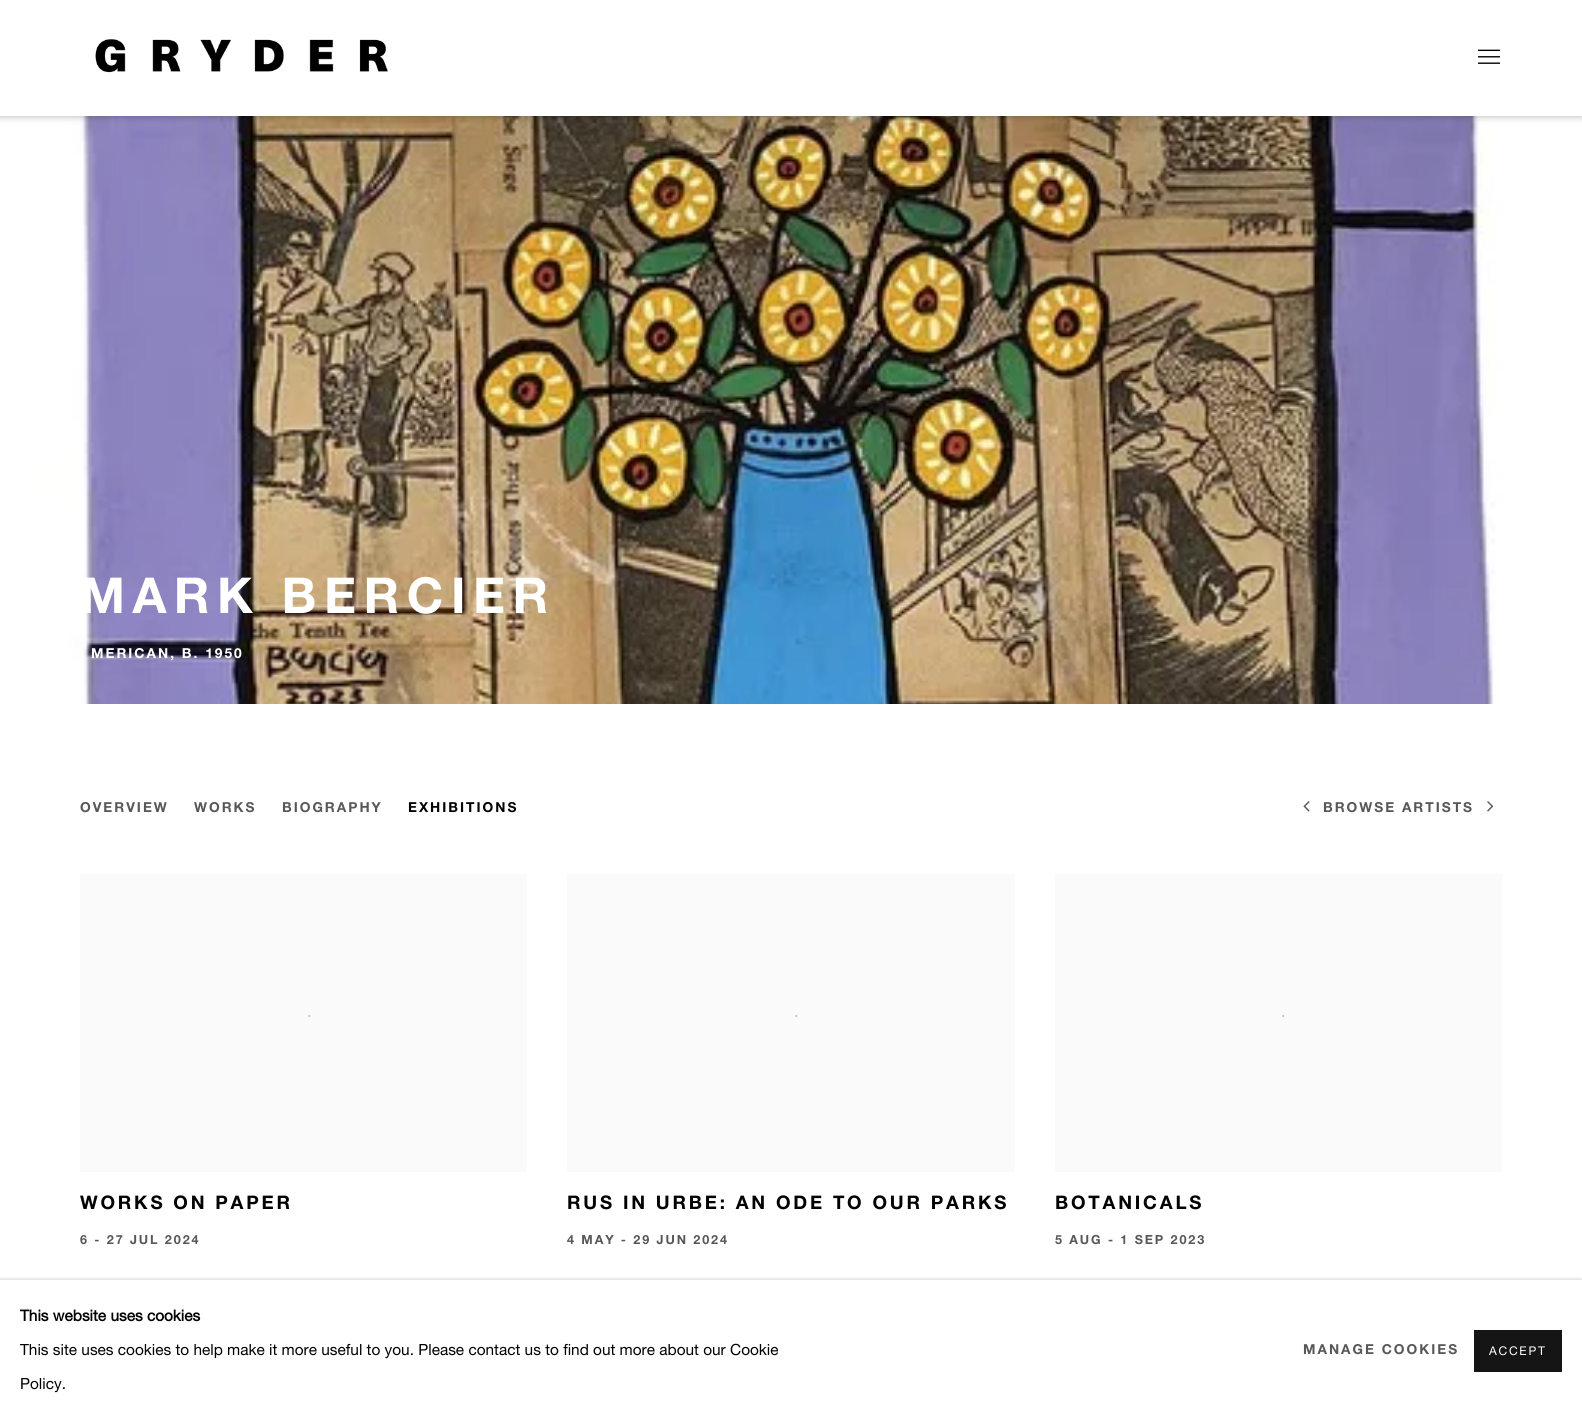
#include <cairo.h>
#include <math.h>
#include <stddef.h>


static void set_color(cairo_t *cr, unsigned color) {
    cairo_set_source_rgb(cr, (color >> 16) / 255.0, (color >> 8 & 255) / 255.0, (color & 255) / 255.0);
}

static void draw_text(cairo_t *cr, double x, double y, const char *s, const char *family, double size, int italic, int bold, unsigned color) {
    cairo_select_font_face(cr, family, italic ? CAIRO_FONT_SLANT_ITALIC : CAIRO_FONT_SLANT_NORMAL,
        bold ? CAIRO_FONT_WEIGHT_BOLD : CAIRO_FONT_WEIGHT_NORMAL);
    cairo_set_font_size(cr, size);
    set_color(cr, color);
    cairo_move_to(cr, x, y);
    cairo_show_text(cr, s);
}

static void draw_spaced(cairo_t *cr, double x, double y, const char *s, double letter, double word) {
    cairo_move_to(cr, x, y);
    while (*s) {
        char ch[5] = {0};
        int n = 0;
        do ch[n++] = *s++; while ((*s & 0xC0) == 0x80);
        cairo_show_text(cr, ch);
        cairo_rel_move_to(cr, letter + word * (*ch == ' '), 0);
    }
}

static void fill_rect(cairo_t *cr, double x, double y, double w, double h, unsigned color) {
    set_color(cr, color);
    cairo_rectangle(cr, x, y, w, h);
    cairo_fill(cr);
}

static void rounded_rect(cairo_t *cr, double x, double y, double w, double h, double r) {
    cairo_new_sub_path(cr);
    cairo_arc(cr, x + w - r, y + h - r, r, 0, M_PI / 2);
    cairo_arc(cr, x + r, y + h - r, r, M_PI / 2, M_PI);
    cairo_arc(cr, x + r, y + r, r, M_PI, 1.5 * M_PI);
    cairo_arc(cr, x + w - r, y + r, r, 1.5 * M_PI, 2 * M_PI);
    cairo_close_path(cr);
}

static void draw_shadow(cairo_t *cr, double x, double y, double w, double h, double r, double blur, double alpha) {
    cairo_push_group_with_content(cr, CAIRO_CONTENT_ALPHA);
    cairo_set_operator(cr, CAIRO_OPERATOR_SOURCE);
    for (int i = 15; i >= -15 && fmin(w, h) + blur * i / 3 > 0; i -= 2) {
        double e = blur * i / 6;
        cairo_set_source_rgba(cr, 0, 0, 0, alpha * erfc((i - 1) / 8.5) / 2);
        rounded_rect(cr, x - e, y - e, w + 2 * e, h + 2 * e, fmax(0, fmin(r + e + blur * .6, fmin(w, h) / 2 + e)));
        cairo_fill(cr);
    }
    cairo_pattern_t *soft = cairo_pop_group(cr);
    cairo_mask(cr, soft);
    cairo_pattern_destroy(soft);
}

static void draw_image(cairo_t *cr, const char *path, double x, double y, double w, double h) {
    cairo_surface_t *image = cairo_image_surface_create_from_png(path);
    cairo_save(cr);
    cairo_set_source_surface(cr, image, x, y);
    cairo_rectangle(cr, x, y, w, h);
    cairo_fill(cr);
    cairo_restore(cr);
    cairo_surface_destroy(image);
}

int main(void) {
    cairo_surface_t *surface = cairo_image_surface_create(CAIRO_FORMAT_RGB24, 1582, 1422);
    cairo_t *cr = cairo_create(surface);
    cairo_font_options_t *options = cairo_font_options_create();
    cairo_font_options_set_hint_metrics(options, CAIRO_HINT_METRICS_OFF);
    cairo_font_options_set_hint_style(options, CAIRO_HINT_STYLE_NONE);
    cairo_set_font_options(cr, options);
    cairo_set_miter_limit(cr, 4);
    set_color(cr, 0xFFFFFF);
    cairo_paint(cr);
    draw_image(cr, "assets/img1.png", 0, 116, 1582, 588);
    set_color(cr, 0x000000);
    draw_shadow(cr, 0, 0, 1582, 116, 0, 4, 0.3);
    fill_rect(cr, 0, 0, 1582, 116, 0xFFFFFF);
    draw_image(cr, "assets/img2.png", 95, 39, 293, 34);
    draw_image(cr, "assets/img3.png", 1478, 49, 22, 15);
    cairo_select_font_face(cr, "Helvetica Neue", CAIRO_FONT_SLANT_NORMAL, CAIRO_FONT_WEIGHT_BOLD);
    cairo_set_font_size(cr, 49.5);
    draw_spaced(cr, 80, 613, "MARK BERCIER", 7.5, 0);
    cairo_set_font_size(cr, 13.75);
    draw_spaced(cr, 91, 658, "MERICAN, B. 1950", 2, 0);
    set_color(cr, 0x585858);
    draw_spaced(cr, 80, 812, "OVERVIEW", 2, 0);
    draw_spaced(cr, 194, 812, "WORKS", 2, 0);
    draw_spaced(cr, 282, 812, "BIOGRAPHY", 2, 0);
    set_color(cr, 0x010101);
    draw_spaced(cr, 408, 812, "EXHIBITIONS", 2, 0);
    draw_image(cr, "assets/img4.png", 1303, 801, 7, 11);
    set_color(cr, 0x585858);
    draw_spaced(cr, 1323, 812, "BROWSE ARTISTS", 2, 0);
    draw_image(cr, "assets/img5.png", 1487, 801, 7, 11);
    fill_rect(cr, 80, 874, 447, 298, 0xFAFAFA);
    cairo_new_path(cr);
    cairo_move_to(cr, 309, 1016);
    cairo_line_to(cr, 309.5, 1016);
    set_color(cr, 0xBBBBBB);
    cairo_set_line_width(cr, 1.8);
    cairo_set_line_cap(cr, CAIRO_LINE_CAP_ROUND);
    cairo_stroke(cr);
    cairo_set_font_size(cr, 18.7);
    set_color(cr, 0x010101);
    draw_spaced(cr, 80, 1209, "WORKS ON PAPER", 2.8, 0);
    cairo_set_font_size(cr, 12.6);
    set_color(cr, 0x585858);
    draw_spaced(cr, 80, 1244, "6 - 27 JUL 2024", 1.9, 0);
    fill_rect(cr, 567, 874, 448, 298, 0xFAFAFA);
    cairo_new_path(cr);
    cairo_move_to(cr, 796, 1016);
    cairo_line_to(cr, 796.5, 1016);
    set_color(cr, 0xBBBBBB);
    cairo_stroke(cr);
    cairo_set_font_size(cr, 18.7);
    set_color(cr, 0x010101);
    draw_spaced(cr, 567, 1209, "RUS IN URBE: AN ODE TO OUR PARKS", 2.8, 0);
    cairo_set_font_size(cr, 12.6);
    set_color(cr, 0x585858);
    draw_spaced(cr, 567, 1244, "4 MAY - 29 JUN 2024", 1.9, 0);
    fill_rect(cr, 1055, 874, 447, 298, 0xFAFAFA);
    cairo_new_path(cr);
    cairo_move_to(cr, 1283, 1016);
    cairo_line_to(cr, 1283.5, 1016);
    set_color(cr, 0xBBBBBB);
    cairo_stroke(cr);
    cairo_set_font_size(cr, 18.7);
    set_color(cr, 0x010101);
    draw_spaced(cr, 1055, 1209, "BOTANICALS", 2.8, 0);
    cairo_set_font_size(cr, 12.6);
    set_color(cr, 0x585858);
    draw_spaced(cr, 1055, 1244, "5 AUG - 1 SEP 2023", 1.9, 0);
    cairo_save(cr);
    cairo_rectangle(cr, 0, 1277, 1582, 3);
    cairo_clip(cr);
    set_color(cr, 0x000000);
    draw_shadow(cr, 0, 1280, 1582, 142, 0, 2.5, 0.23);
    cairo_restore(cr);
    draw_text(cr, 20, 1321, "This website uses cookies", "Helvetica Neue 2", 15.4, 0, 1, 0x010101);
    draw_text(cr, 20, 1355, "This site uses cookies to help make it more useful to you. Please contact us to find out more about our Cookie", "Helvetica Neue", 15.4, 0, 0, 0x010101);
    draw_text(cr, 20, 1389, "Policy.", "Helvetica Neue", 15.4, 0, 0, 0x010101);
    cairo_select_font_face(cr, "Helvetica Neue", CAIRO_FONT_SLANT_NORMAL, CAIRO_FONT_WEIGHT_BOLD);
    cairo_set_font_size(cr, 13.75);
    set_color(cr, 0x585858);
    draw_spaced(cr, 1303, 1354, "MANAGE COOKIES", 2, 0);
    fill_rect(cr, 1474, 1330, 88, 42, 0x151515);
    cairo_select_font_face(cr, "Helvetica Neue", CAIRO_FONT_SLANT_NORMAL, CAIRO_FONT_WEIGHT_NORMAL);
    cairo_set_font_size(cr, 12);
    set_color(cr, 0xFFFFFF);
    draw_spaced(cr, 1489, 1355, "ACCEPT", 1.75, 0);
    cairo_surface_write_to_png(surface, "output.png");
    cairo_font_options_destroy(options);
    cairo_destroy(cr);
    cairo_surface_destroy(surface);
    return 0;
}
